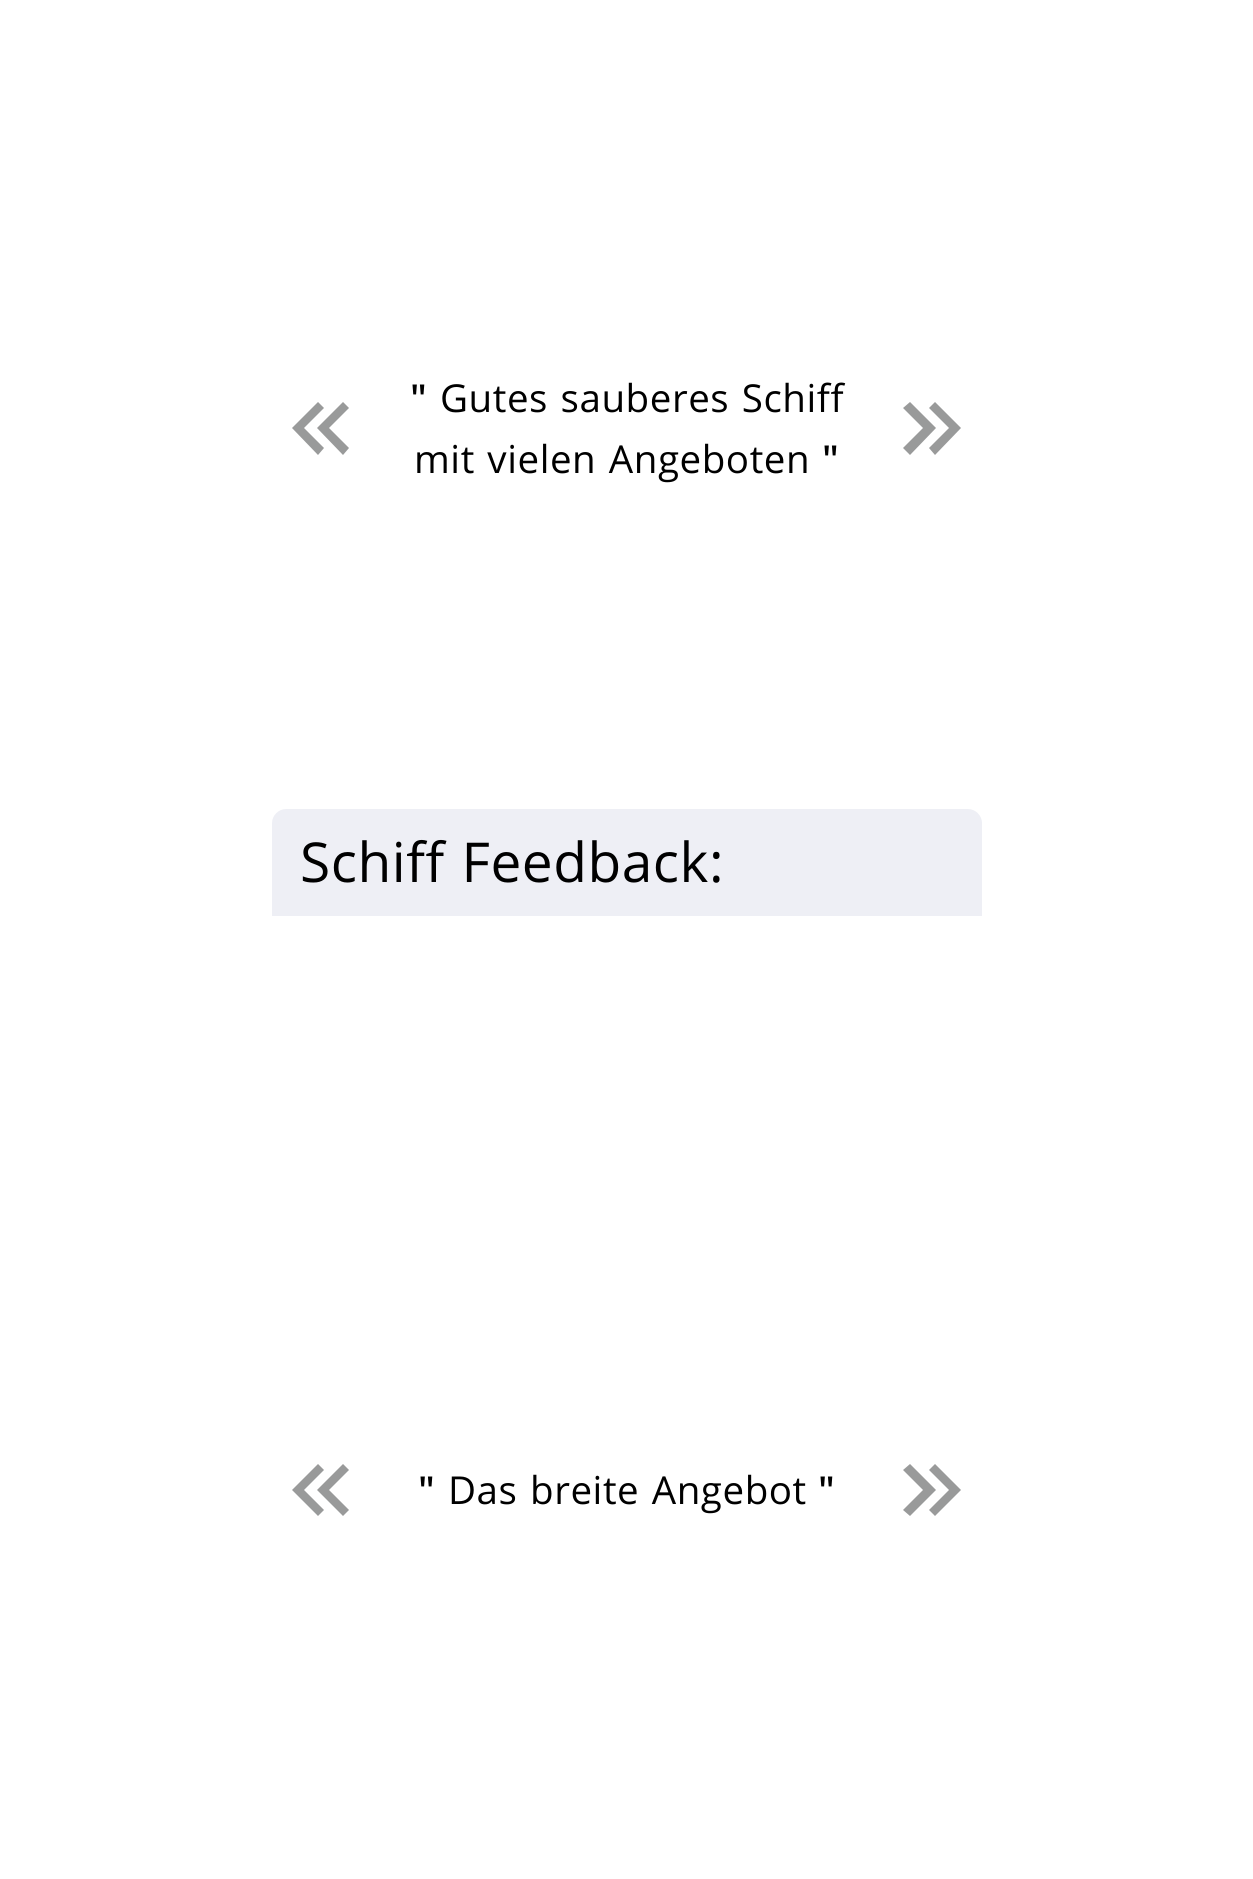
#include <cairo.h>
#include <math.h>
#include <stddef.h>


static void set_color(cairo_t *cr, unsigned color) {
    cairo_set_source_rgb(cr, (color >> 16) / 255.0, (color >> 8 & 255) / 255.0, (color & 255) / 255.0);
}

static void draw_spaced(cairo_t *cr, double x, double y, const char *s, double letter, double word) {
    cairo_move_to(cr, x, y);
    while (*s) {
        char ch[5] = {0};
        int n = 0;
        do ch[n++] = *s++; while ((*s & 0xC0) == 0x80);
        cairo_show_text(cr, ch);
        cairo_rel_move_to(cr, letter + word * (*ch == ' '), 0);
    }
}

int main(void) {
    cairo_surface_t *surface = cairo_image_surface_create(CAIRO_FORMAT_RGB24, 1253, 1879);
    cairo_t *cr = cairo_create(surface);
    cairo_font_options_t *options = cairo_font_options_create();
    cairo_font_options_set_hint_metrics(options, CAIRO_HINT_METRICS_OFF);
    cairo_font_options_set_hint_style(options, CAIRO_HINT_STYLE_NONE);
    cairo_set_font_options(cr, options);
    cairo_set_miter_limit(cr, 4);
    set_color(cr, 0xFFFFFF);
    cairo_paint(cr);
    set_color(cr, 0x999A9A);
    cairo_new_path(cr);
    cairo_move_to(cr, 324, 448);
    cairo_line_to(cr, 304, 428);
    cairo_line_to(cr, 324, 408);
    cairo_line_to(cr, 318, 402);
    cairo_line_to(cr, 292, 428);
    cairo_line_to(cr, 318, 455);
    cairo_close_path(cr);
    cairo_move_to(cr, 349, 448);
    cairo_line_to(cr, 329, 428);
    cairo_line_to(cr, 349, 408);
    cairo_line_to(cr, 343, 402);
    cairo_line_to(cr, 317, 428);
    cairo_line_to(cr, 343, 455);
    cairo_close_path(cr);
    cairo_fill(cr);
    cairo_select_font_face(cr, "Open Sans SemiBold", CAIRO_FONT_SLANT_NORMAL, CAIRO_FONT_WEIGHT_NORMAL);
    cairo_set_font_size(cr, 38.5);
    set_color(cr, 0x000000);
    draw_spaced(cr, 410, 412, "\"", 0.55, 0);
    cairo_select_font_face(cr, "Open Sans", CAIRO_FONT_SLANT_NORMAL, CAIRO_FONT_WEIGHT_NORMAL);
    draw_spaced(cr, 440, 412, "Gutes sauberes Schiff", 0.55, 2);
    draw_spaced(cr, 414, 473, "mit vielen Angeboten", 0.55, 2);
    cairo_select_font_face(cr, "Open Sans SemiBold", CAIRO_FONT_SLANT_NORMAL, CAIRO_FONT_WEIGHT_NORMAL);
    draw_spaced(cr, 822, 473, "\"", 0.55, 0);
    set_color(cr, 0x999A9A);
    cairo_new_path(cr);
    cairo_move_to(cr, 903, 448);
    cairo_line_to(cr, 923, 428);
    cairo_line_to(cr, 903, 408);
    cairo_line_to(cr, 910, 402);
    cairo_line_to(cr, 936, 428);
    cairo_line_to(cr, 910, 455);
    cairo_close_path(cr);
    cairo_move_to(cr, 929, 448);
    cairo_line_to(cr, 949, 428);
    cairo_line_to(cr, 929, 408);
    cairo_line_to(cr, 935, 402);
    cairo_line_to(cr, 961, 428);
    cairo_line_to(cr, 935, 455);
    cairo_close_path(cr);
    cairo_fill(cr);
    set_color(cr, 0xEEEFF5);
    cairo_new_path(cr);
    cairo_move_to(cr, 286, 809);
    cairo_line_to(cr, 968, 809);
    cairo_curve_to(cr, 975.5, 809, 982, 815.5, 982, 823);
    cairo_line_to(cr, 982, 916);
    cairo_line_to(cr, 272, 916);
    cairo_line_to(cr, 272, 823);
    cairo_curve_to(cr, 272, 815.5, 278.5, 809, 286, 809);
    cairo_close_path(cr);
    cairo_fill(cr);
    cairo_select_font_face(cr, "Open Sans", CAIRO_FONT_SLANT_NORMAL, CAIRO_FONT_WEIGHT_NORMAL);
    cairo_set_font_size(cr, 55);
    set_color(cr, 0x000000);
    draw_spaced(cr, 300, 882, "Schiff Feedback:", 0.55, 2);
    set_color(cr, 0x999A9A);
    cairo_new_path(cr);
    cairo_move_to(cr, 324, 1510);
    cairo_line_to(cr, 304, 1490);
    cairo_line_to(cr, 324, 1470);
    cairo_line_to(cr, 318, 1464);
    cairo_line_to(cr, 292, 1490);
    cairo_line_to(cr, 318, 1516);
    cairo_close_path(cr);
    cairo_move_to(cr, 349, 1510);
    cairo_line_to(cr, 329, 1490);
    cairo_line_to(cr, 349, 1470);
    cairo_line_to(cr, 343, 1464);
    cairo_line_to(cr, 317, 1490);
    cairo_line_to(cr, 343, 1516);
    cairo_close_path(cr);
    cairo_fill(cr);
    cairo_select_font_face(cr, "Open Sans SemiBold", CAIRO_FONT_SLANT_NORMAL, CAIRO_FONT_WEIGHT_NORMAL);
    cairo_set_font_size(cr, 38.5);
    set_color(cr, 0x000000);
    draw_spaced(cr, 418, 1504, "\"", 0.55, 0);
    cairo_select_font_face(cr, "Open Sans", CAIRO_FONT_SLANT_NORMAL, CAIRO_FONT_WEIGHT_NORMAL);
    draw_spaced(cr, 448, 1504, "Das breite Angebot", 0.55, 2);
    cairo_select_font_face(cr, "Open Sans SemiBold", CAIRO_FONT_SLANT_NORMAL, CAIRO_FONT_WEIGHT_NORMAL);
    draw_spaced(cr, 818, 1504, "\"", 0.55, 0);
    set_color(cr, 0x999A9A);
    cairo_new_path(cr);
    cairo_move_to(cr, 903, 1510);
    cairo_line_to(cr, 923, 1490);
    cairo_line_to(cr, 903, 1470);
    cairo_line_to(cr, 910, 1464);
    cairo_line_to(cr, 936, 1490);
    cairo_line_to(cr, 910, 1516);
    cairo_close_path(cr);
    cairo_move_to(cr, 929, 1510);
    cairo_line_to(cr, 949, 1490);
    cairo_line_to(cr, 929, 1470);
    cairo_line_to(cr, 935, 1464);
    cairo_line_to(cr, 961, 1490);
    cairo_line_to(cr, 935, 1516);
    cairo_close_path(cr);
    cairo_fill(cr);
    cairo_surface_write_to_png(surface, "output.png");
    cairo_font_options_destroy(options);
    cairo_destroy(cr);
    cairo_surface_destroy(surface);
    return 0;
}
